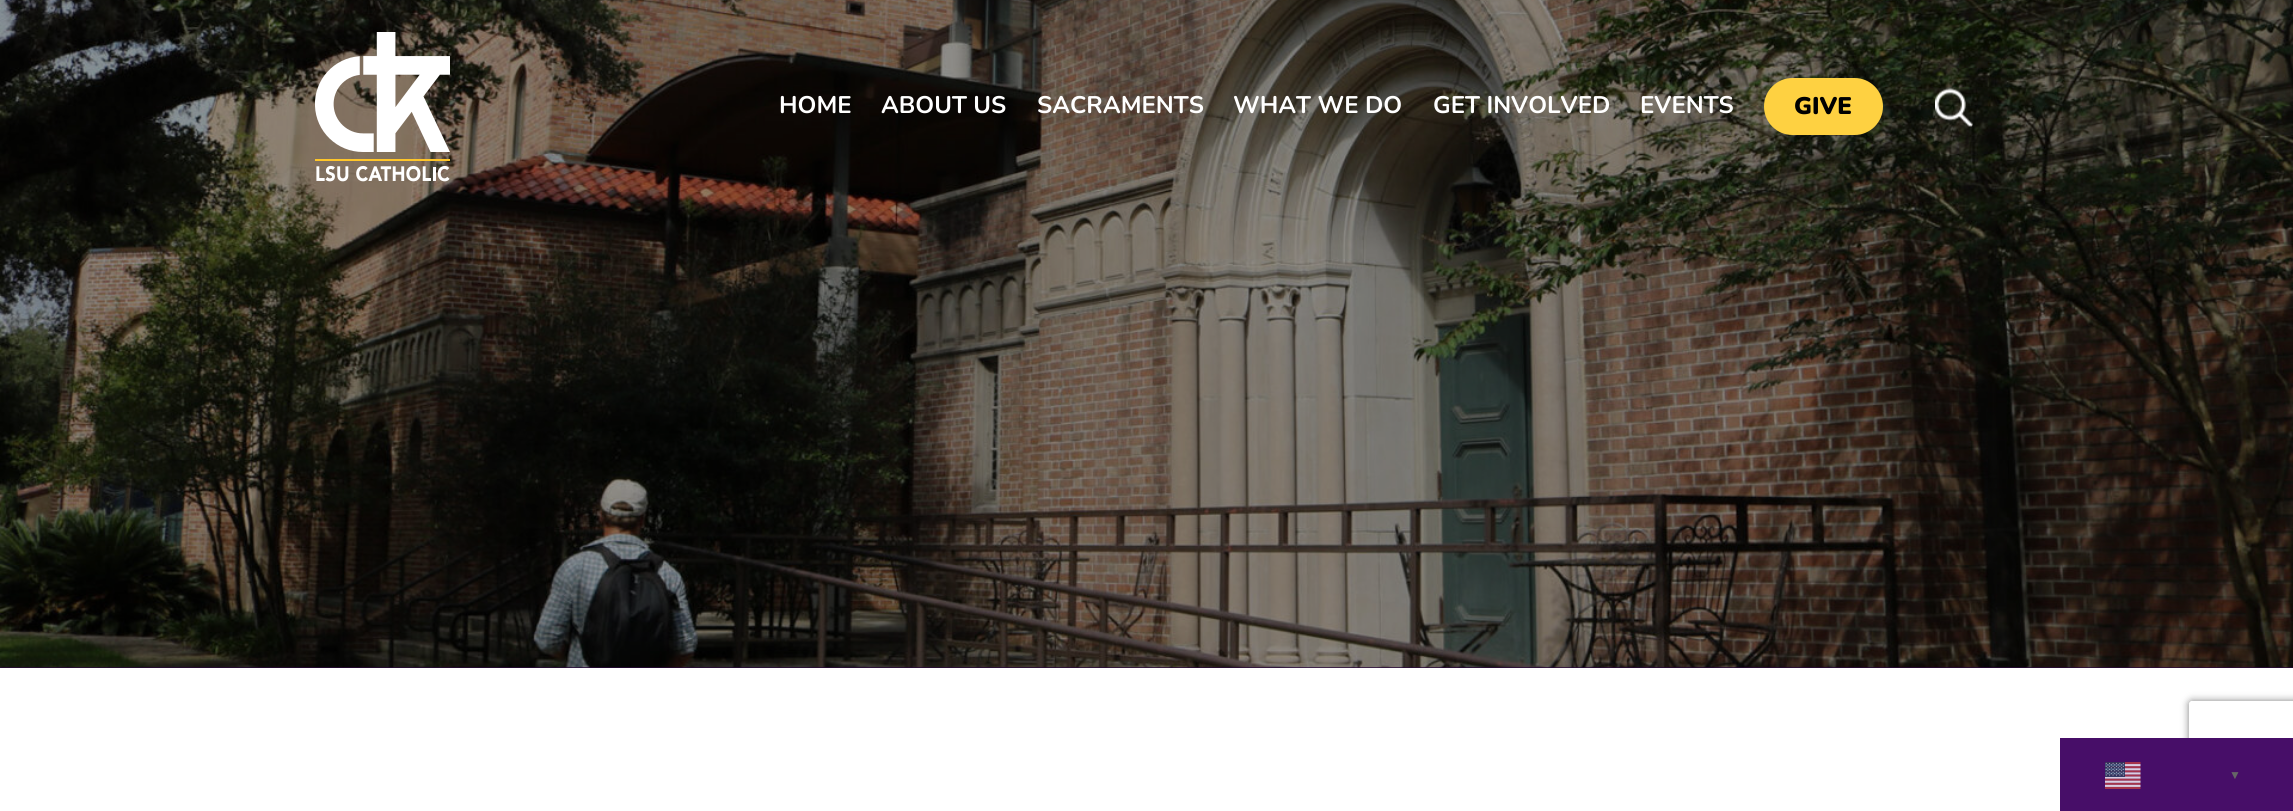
#include <cairo.h>
#include <math.h>
#include <stddef.h>


static void set_color(cairo_t *cr, unsigned color) {
    cairo_set_source_rgb(cr, (color >> 16) / 255.0, (color >> 8 & 255) / 255.0, (color & 255) / 255.0);
}

static void draw_text(cairo_t *cr, double x, double y, const char *s, const char *family, double size, int italic, int bold, unsigned color) {
    cairo_select_font_face(cr, family, italic ? CAIRO_FONT_SLANT_ITALIC : CAIRO_FONT_SLANT_NORMAL,
        bold ? CAIRO_FONT_WEIGHT_BOLD : CAIRO_FONT_WEIGHT_NORMAL);
    cairo_set_font_size(cr, size);
    set_color(cr, color);
    cairo_move_to(cr, x, y);
    cairo_show_text(cr, s);
}

static void fill_rect(cairo_t *cr, double x, double y, double w, double h, unsigned color) {
    set_color(cr, color);
    cairo_rectangle(cr, x, y, w, h);
    cairo_fill(cr);
}

static void rounded_rect(cairo_t *cr, double x, double y, double w, double h, double r) {
    cairo_new_sub_path(cr);
    cairo_arc(cr, x + w - r, y + h - r, r, 0, M_PI / 2);
    cairo_arc(cr, x + r, y + h - r, r, M_PI / 2, M_PI);
    cairo_arc(cr, x + r, y + r, r, M_PI, 1.5 * M_PI);
    cairo_arc(cr, x + w - r, y + r, r, 1.5 * M_PI, 2 * M_PI);
    cairo_close_path(cr);
}

static void draw_shadow(cairo_t *cr, double x, double y, double w, double h, double r, double blur, double alpha) {
    cairo_push_group_with_content(cr, CAIRO_CONTENT_ALPHA);
    cairo_set_operator(cr, CAIRO_OPERATOR_SOURCE);
    for (int i = 15; i >= -15 && fmin(w, h) + blur * i / 3 > 0; i -= 2) {
        double e = blur * i / 6;
        cairo_set_source_rgba(cr, 0, 0, 0, alpha * erfc((i - 1) / 8.5) / 2);
        rounded_rect(cr, x - e, y - e, w + 2 * e, h + 2 * e, fmax(0, fmin(r + e + blur * .6, fmin(w, h) / 2 + e)));
        cairo_fill(cr);
    }
    cairo_pattern_t *soft = cairo_pop_group(cr);
    cairo_mask(cr, soft);
    cairo_pattern_destroy(soft);
}

static void draw_image(cairo_t *cr, const char *path, double x, double y, double w, double h) {
    cairo_surface_t *image = cairo_image_surface_create_from_png(path);
    cairo_save(cr);
    cairo_set_source_surface(cr, image, x, y);
    cairo_rectangle(cr, x, y, w, h);
    cairo_fill(cr);
    cairo_restore(cr);
    cairo_surface_destroy(image);
}

int main(void) {
    cairo_surface_t *surface = cairo_image_surface_create(CAIRO_FORMAT_RGB24, 2293, 811);
    cairo_t *cr = cairo_create(surface);
    cairo_font_options_t *options = cairo_font_options_create();
    cairo_font_options_set_hint_metrics(options, CAIRO_HINT_METRICS_OFF);
    cairo_font_options_set_hint_style(options, CAIRO_HINT_STYLE_NONE);
    cairo_set_font_options(cr, options);
    cairo_set_miter_limit(cr, 4);
    set_color(cr, 0xFFFFFF);
    cairo_paint(cr);
    fill_rect(cr, 0, 667, 2293, 1, 0x29083C);
    draw_image(cr, "assets/img1.png", 0, 0, 2293, 668);
    draw_image(cr, "assets/img2.png", 315, 32, 135, 150);
    draw_text(cr, 779, 113, "HOME", "Nunito", 24, 0, 1, 0xFFFFFF);
    draw_text(cr, 881, 113, "ABOUT US", "Nunito", 24, 0, 1, 0xFFFFFF);
    draw_text(cr, 1037, 113, "SACRAMENTS", "Nunito", 24, 0, 1, 0xFFFFFF);
    draw_text(cr, 1233, 113, "WHAT WE DO", "Nunito", 24, 0, 1, 0xFFFFFF);
    draw_text(cr, 1433, 113, "GET INVOLVED", "Nunito", 24, 0, 1, 0xFFFFFF);
    draw_text(cr, 1640, 113, "EVENTS", "Nunito", 24, 0, 1, 0xFFFFFF);
    set_color(cr, 0xFED141);
    rounded_rect(cr, 1764, 78, 119, 57, 28.5);
    cairo_fill(cr);
    draw_text(cr, 1794, 114, "GIVE", "Nunito Black", 24, 0, 0, 0x000000);
    draw_image(cr, "assets/img3.png", 1935, 88, 38, 39);
    cairo_save(cr);
    cairo_set_fill_rule(cr, CAIRO_FILL_RULE_EVEN_ODD);
    cairo_new_path(cr);
    cairo_move_to(cr, 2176, 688);
    cairo_line_to(cr, 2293, 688);
    cairo_line_to(cr, 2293, 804);
    cairo_line_to(cr, 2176, 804);
    cairo_close_path(cr);
    cairo_move_to(cr, 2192, 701);
    cairo_line_to(cr, 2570, 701);
    cairo_curve_to(cr, 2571.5, 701, 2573, 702.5, 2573, 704);
    cairo_line_to(cr, 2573, 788);
    cairo_curve_to(cr, 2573, 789.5, 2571.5, 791, 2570, 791);
    cairo_line_to(cr, 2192, 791);
    cairo_curve_to(cr, 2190.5, 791, 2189, 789.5, 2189, 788);
    cairo_line_to(cr, 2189, 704);
    cairo_curve_to(cr, 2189, 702.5, 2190.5, 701, 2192, 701);
    cairo_close_path(cr);
    cairo_clip(cr);
    set_color(cr, 0x808080);
    draw_shadow(cr, 2189, 701, 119, 90, 3, 4, 1);
    cairo_restore(cr);
    fill_rect(cr, 2060, 738, 233, 73, 0x470E68);
    draw_image(cr, "assets/img4.png", 2105, 762, 36, 27);
    draw_text(cr, 2229, 779, "▼", "Liberation Sans", 12, 0, 1, 0x666666);
    cairo_surface_write_to_png(surface, "output.png");
    cairo_font_options_destroy(options);
    cairo_destroy(cr);
    cairo_surface_destroy(surface);
    return 0;
}
